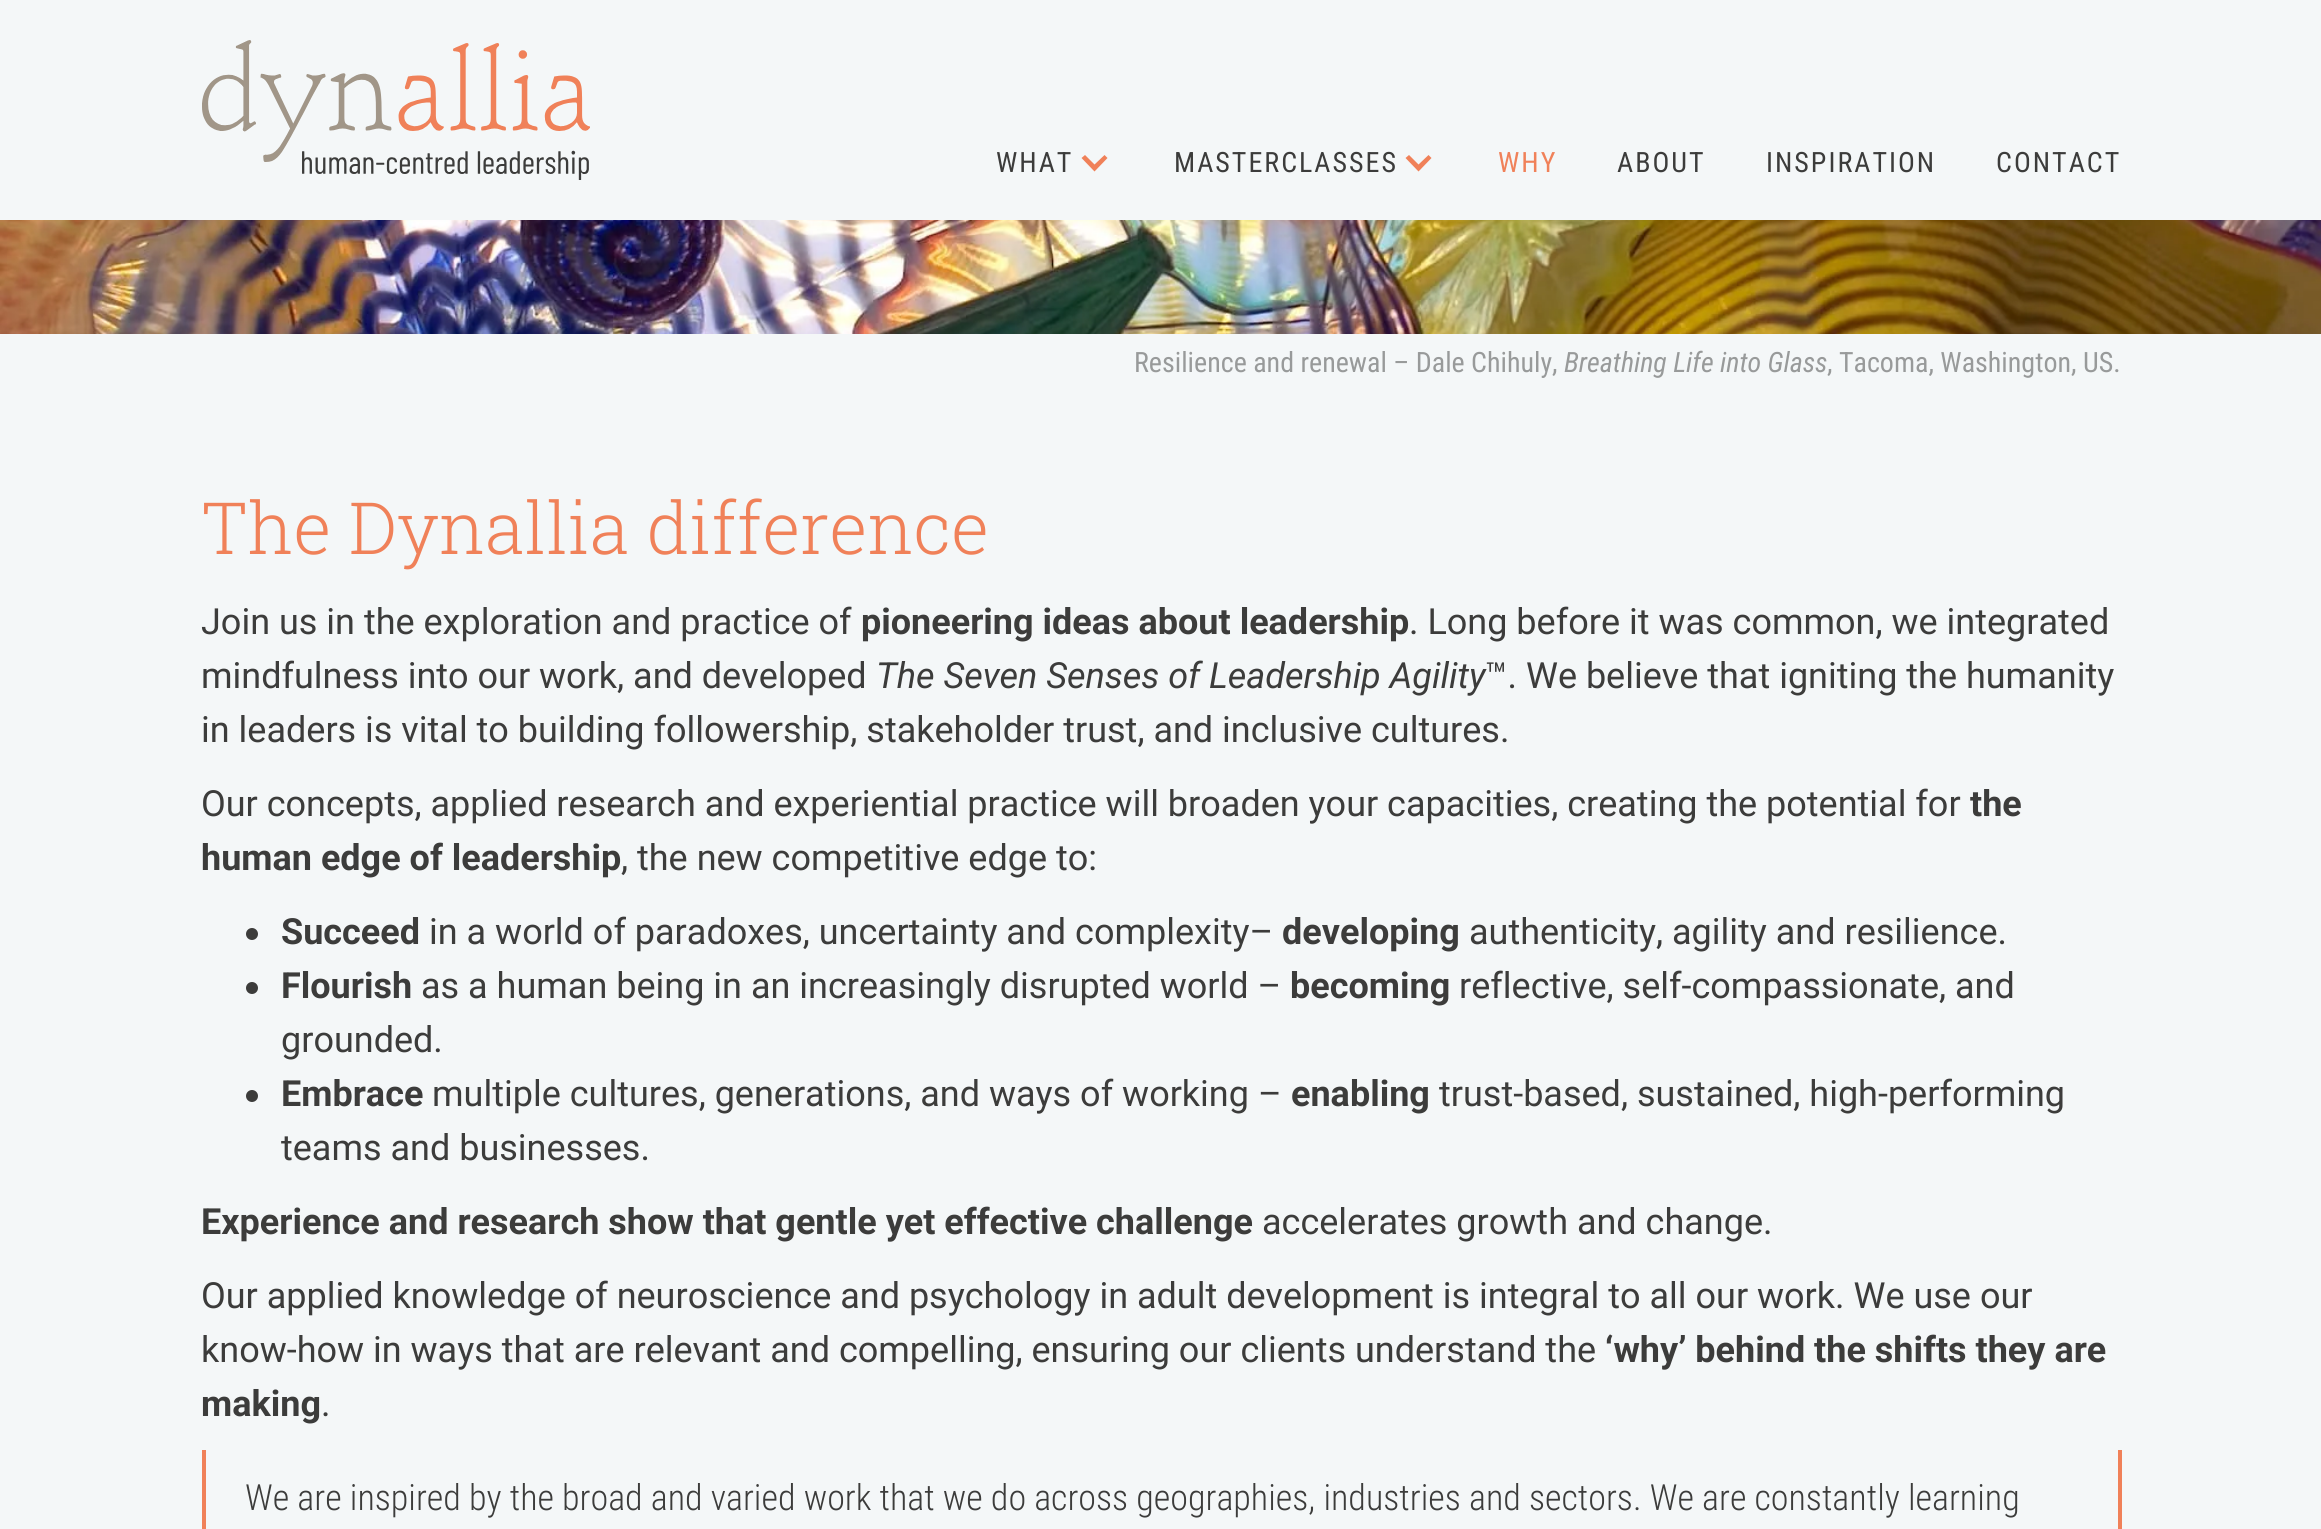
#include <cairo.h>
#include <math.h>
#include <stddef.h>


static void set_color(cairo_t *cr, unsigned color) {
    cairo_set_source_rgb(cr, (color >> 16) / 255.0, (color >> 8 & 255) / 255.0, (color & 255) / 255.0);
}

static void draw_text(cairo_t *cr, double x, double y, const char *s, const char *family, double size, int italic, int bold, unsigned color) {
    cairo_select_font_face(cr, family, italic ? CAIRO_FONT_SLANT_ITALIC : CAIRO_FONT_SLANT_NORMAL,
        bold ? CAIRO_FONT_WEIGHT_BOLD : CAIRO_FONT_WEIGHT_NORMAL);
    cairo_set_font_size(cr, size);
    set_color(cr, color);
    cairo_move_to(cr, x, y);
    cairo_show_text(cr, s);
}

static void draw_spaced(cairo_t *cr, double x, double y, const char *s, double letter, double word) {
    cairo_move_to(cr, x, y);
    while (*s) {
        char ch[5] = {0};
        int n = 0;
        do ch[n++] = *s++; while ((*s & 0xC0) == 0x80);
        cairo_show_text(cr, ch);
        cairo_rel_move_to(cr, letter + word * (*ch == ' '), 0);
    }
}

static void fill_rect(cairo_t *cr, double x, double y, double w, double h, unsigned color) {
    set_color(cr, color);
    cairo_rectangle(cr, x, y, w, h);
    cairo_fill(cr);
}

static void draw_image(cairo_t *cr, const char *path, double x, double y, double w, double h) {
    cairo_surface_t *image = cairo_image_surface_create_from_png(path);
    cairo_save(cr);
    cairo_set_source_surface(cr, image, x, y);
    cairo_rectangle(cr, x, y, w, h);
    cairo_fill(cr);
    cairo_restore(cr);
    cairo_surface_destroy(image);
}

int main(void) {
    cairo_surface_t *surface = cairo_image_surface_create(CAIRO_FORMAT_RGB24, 2321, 1529);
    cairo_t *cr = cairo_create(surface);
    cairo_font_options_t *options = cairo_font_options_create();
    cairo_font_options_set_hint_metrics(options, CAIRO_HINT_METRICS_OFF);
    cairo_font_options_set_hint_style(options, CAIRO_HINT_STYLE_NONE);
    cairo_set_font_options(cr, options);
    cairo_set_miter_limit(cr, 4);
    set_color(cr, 0xF4F7F8);
    cairo_paint(cr);
    draw_image(cr, "assets/img1.png", 202, 40, 388, 140);
    cairo_select_font_face(cr, "Roboto Condensed", CAIRO_FONT_SLANT_NORMAL, CAIRO_FONT_WEIGHT_NORMAL);
    cairo_set_font_size(cr, 28);
    set_color(cr, 0x3C3C3B);
    draw_spaced(cr, 996, 172, "WHAT", 2, 0);
    set_color(cr, 0xF08159);
    cairo_new_path(cr);
    cairo_move_to(cr, 1104.5, 155);
    cairo_line_to(cr, 1094.5, 164.5);
    cairo_line_to(cr, 1085, 155);
    cairo_line_to(cr, 1081.5, 158);
    cairo_line_to(cr, 1094.5, 171.5);
    cairo_line_to(cr, 1107.5, 158);
    cairo_close_path(cr);
    cairo_fill(cr);
    set_color(cr, 0x3C3C3B);
    draw_spaced(cr, 1174, 172, "MASTERCLASSES", 2, 0);
    set_color(cr, 0xF08159);
    cairo_new_path(cr);
    cairo_move_to(cr, 1428.5, 155);
    cairo_line_to(cr, 1418.5, 164.5);
    cairo_line_to(cr, 1409, 155);
    cairo_line_to(cr, 1405.5, 158);
    cairo_line_to(cr, 1418.5, 171.5);
    cairo_line_to(cr, 1431.5, 158);
    cairo_close_path(cr);
    cairo_fill(cr);
    draw_spaced(cr, 1498, 172, "WHY", 2, 0);
    set_color(cr, 0x3C3C3B);
    draw_spaced(cr, 1617, 172, "ABOUT", 2, 0);
    draw_spaced(cr, 1766, 172, "INSPIRATION", 2, 0);
    draw_spaced(cr, 1996, 172, "CONTACT", 2, 0);
    draw_image(cr, "assets/img2.png", 0, 220, 2321, 114);
    draw_text(cr, 1134, 372, "Resilience and renewal – Dale Chihuly,", "Roboto Condensed", 28, 0, 0, 0x989A9A);
    draw_text(cr, 1564, 372, "Breathing Life into Glass", "Roboto Condensed", 28, 1, 0, 0x989A9A);
    draw_text(cr, 1827, 372, ", Tacoma, Washington, US.", "Roboto Condensed", 28, 0, 0, 0x989A9A);
    draw_text(cr, 201, 554, "The Dynallia difference", "Roboto Slab Light", 72, 0, 0, 0xF08159);
    draw_text(cr, 201, 634, "Join us in the exploration and practice of", "Roboto", 36, 0, 0, 0x3C3C3B);
    draw_text(cr, 861, 634, "pioneering ideas about leadership", "Roboto", 36, 0, 1, 0x3C3C3B);
    draw_text(cr, 1409, 634, ". Long before it was common, we integrated", "Roboto", 36, 0, 0, 0x3C3C3B);
    draw_text(cr, 201, 688, "mindfulness into our work, and developed", "Roboto", 36, 0, 0, 0x3C3C3B);
    draw_text(cr, 876, 688, "The Seven Senses of Leadership Agility", "Roboto", 36, 1, 0, 0x3C3C3B);
    draw_text(cr, 1485, 688, "™. We believe that igniting the humanity", "Roboto", 36, 0, 0, 0x3C3C3B);
    draw_text(cr, 201, 742, "in leaders is vital to building followership, stakeholder trust, and inclusive cultures.", "Roboto", 36, 0, 0, 0x3C3C3B);
    draw_text(cr, 201, 816, "Our concepts, applied research and experiential practice will broaden your capacities, creating the potential for", "Roboto", 36, 0, 0, 0x3C3C3B);
    draw_text(cr, 1970, 816, "the", "Roboto", 36, 0, 1, 0x3C3C3B);
    draw_text(cr, 201, 870, "human edge of leadership", "Roboto", 36, 0, 1, 0x3C3C3B);
    draw_text(cr, 621, 870, ", the new competitive edge to:", "Roboto", 36, 0, 0, 0x3C3C3B);
    cairo_new_path(cr);
    cairo_arc(cr, 252, 934, 6, 0, 2 * M_PI);
    cairo_fill(cr);
    draw_text(cr, 281, 944, "Succeed", "Roboto", 36, 0, 1, 0x3C3C3B);
    draw_text(cr, 429, 944, "in a world of paradoxes, uncertainty and complexity–", "Roboto", 36, 0, 0, 0x3C3C3B);
    draw_text(cr, 1282, 944, "developing", "Roboto", 36, 0, 1, 0x3C3C3B);
    draw_text(cr, 1469, 944, "authenticity, agility and resilience.", "Roboto", 36, 0, 0, 0x3C3C3B);
    cairo_new_path(cr);
    cairo_arc(cr, 252, 988, 6, 0, 2 * M_PI);
    cairo_fill(cr);
    draw_text(cr, 281, 998, "Flourish", "Roboto", 36, 0, 1, 0x3C3C3B);
    draw_text(cr, 421, 998, "as a human being in an increasingly disrupted world –", "Roboto", 36, 0, 0, 0x3C3C3B);
    draw_text(cr, 1290, 998, "becoming", "Roboto", 36, 0, 1, 0x3C3C3B);
    draw_text(cr, 1459, 998, "reflective, self-compassionate, and", "Roboto", 36, 0, 0, 0x3C3C3B);
    draw_text(cr, 281, 1052, "grounded.", "Roboto", 36, 0, 0, 0x3C3C3B);
    cairo_new_path(cr);
    cairo_arc(cr, 252, 1096, 6, 0, 2 * M_PI);
    cairo_fill(cr);
    draw_text(cr, 281, 1106, "Embrace", "Roboto", 36, 0, 1, 0x3C3C3B);
    draw_text(cr, 432, 1106, "multiple cultures, generations, and ways of working –", "Roboto", 36, 0, 0, 0x3C3C3B);
    draw_text(cr, 1291, 1106, "enabling", "Roboto", 36, 0, 1, 0x3C3C3B);
    draw_text(cr, 1439, 1106, "trust-based, sustained, high-performing", "Roboto", 36, 0, 0, 0x3C3C3B);
    draw_text(cr, 281, 1160, "teams and businesses.", "Roboto", 36, 0, 0, 0x3C3C3B);
    draw_text(cr, 201, 1234, "Experience and research show that gentle yet effective challenge", "Roboto", 36, 0, 1, 0x3C3C3B);
    draw_text(cr, 1262, 1234, "accelerates growth and change.", "Roboto", 36, 0, 0, 0x3C3C3B);
    draw_text(cr, 201, 1308, "Our applied knowledge of neuroscience and psychology in adult development is integral to all our work. We use our", "Roboto", 36, 0, 0, 0x3C3C3B);
    draw_text(cr, 201, 1362, "know-how in ways that are relevant and compelling, ensuring our clients understand the", "Roboto", 36, 0, 0, 0x3C3C3B);
    draw_text(cr, 1605, 1362, "‘why’ behind the shifts they are", "Roboto", 36, 0, 1, 0x3C3C3B);
    draw_text(cr, 201, 1416, "making", "Roboto", 36, 0, 1, 0x3C3C3B);
    draw_text(cr, 321, 1416, ".", "Roboto", 36, 0, 0, 0x3C3C3B);
    fill_rect(cr, 2118, 1450, 4, 79, 0xF08159);
    fill_rect(cr, 202, 1450, 4, 79, 0xF08159);
    draw_text(cr, 245, 1510, "We are inspired by the broad and varied work that we do across geographies, industries and sectors. We are constantly learning", "Roboto Condensed Light", 36, 0, 0, 0x3C3C3B);
    cairo_surface_write_to_png(surface, "output.png");
    cairo_font_options_destroy(options);
    cairo_destroy(cr);
    cairo_surface_destroy(surface);
    return 0;
}
